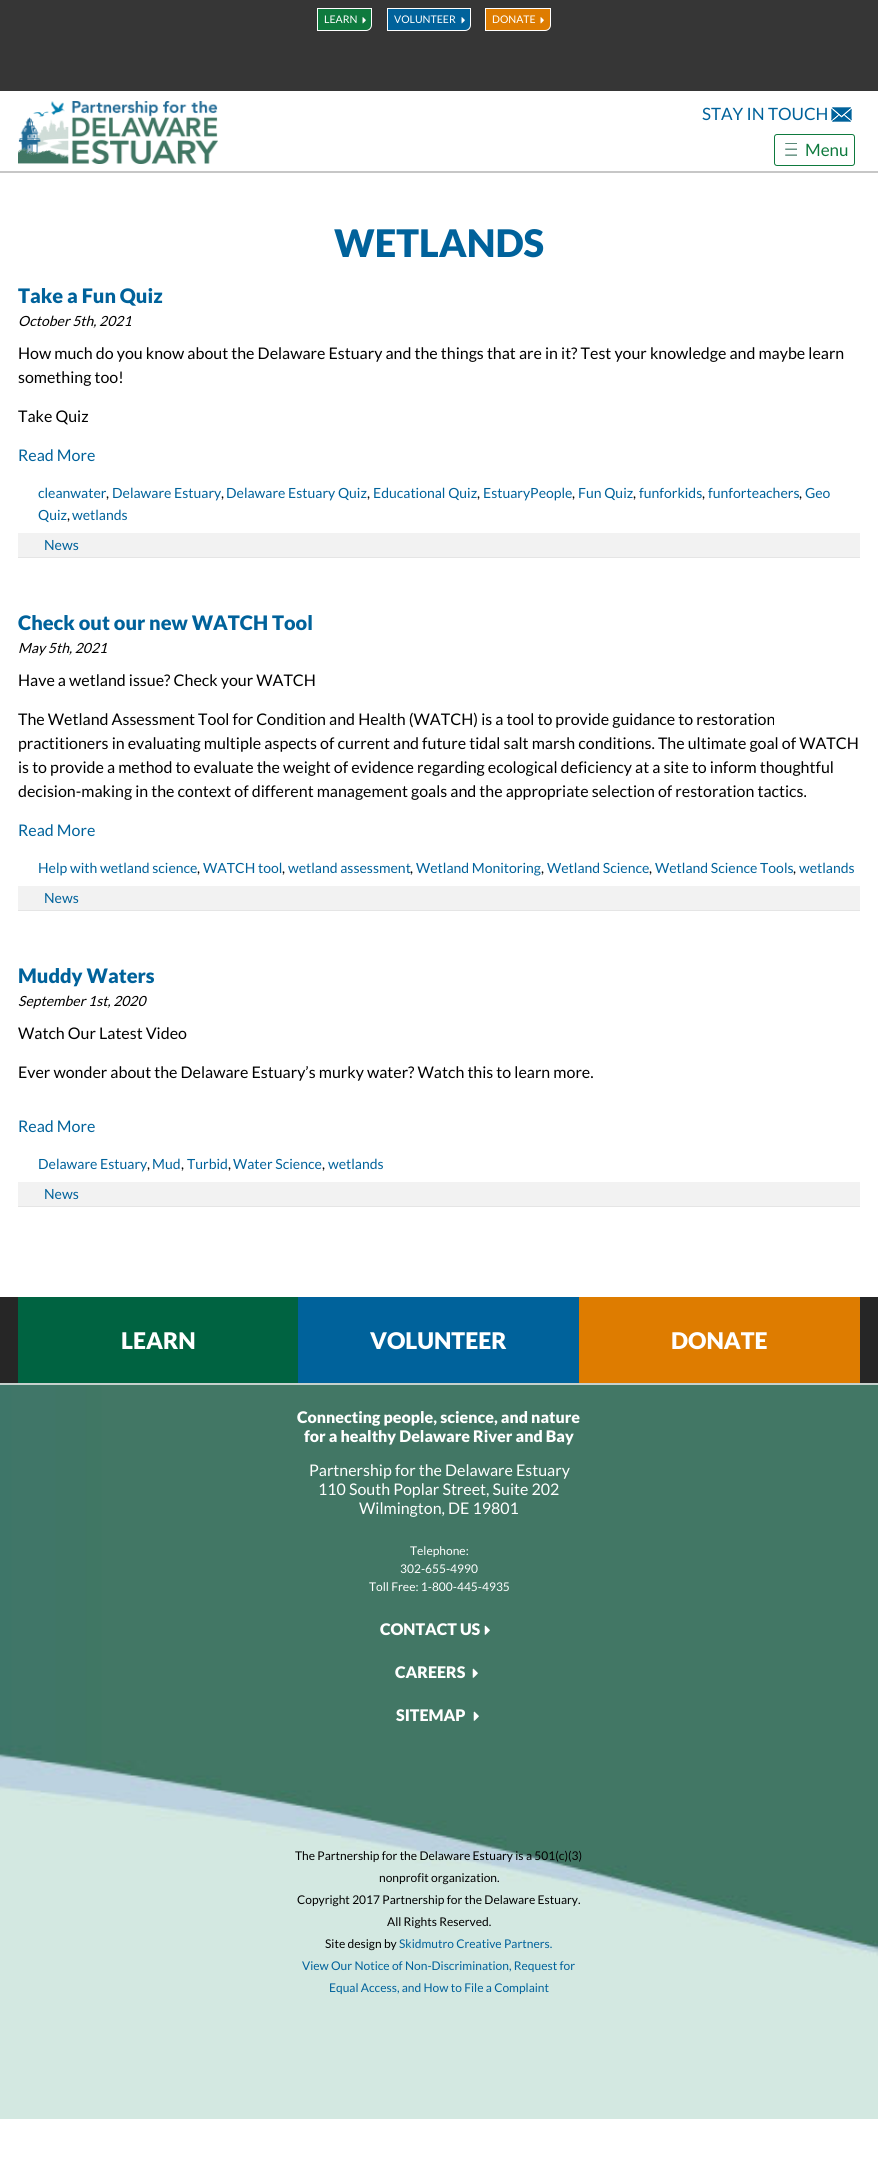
#include <cairo.h>
#include <math.h>
#include <stddef.h>


static void set_color(cairo_t *cr, unsigned color) {
    cairo_set_source_rgb(cr, (color >> 16) / 255.0, (color >> 8 & 255) / 255.0, (color & 255) / 255.0);
}

static void draw_text(cairo_t *cr, double x, double y, const char *s, const char *family, double size, int italic, int bold, unsigned color) {
    cairo_select_font_face(cr, family, italic ? CAIRO_FONT_SLANT_ITALIC : CAIRO_FONT_SLANT_NORMAL,
        bold ? CAIRO_FONT_WEIGHT_BOLD : CAIRO_FONT_WEIGHT_NORMAL);
    cairo_set_font_size(cr, size);
    set_color(cr, color);
    cairo_move_to(cr, x, y);
    cairo_show_text(cr, s);
}

static void fill_rect(cairo_t *cr, double x, double y, double w, double h, unsigned color) {
    set_color(cr, color);
    cairo_rectangle(cr, x, y, w, h);
    cairo_fill(cr);
}

static void rounded_rect(cairo_t *cr, double x, double y, double w, double h, double r) {
    cairo_new_sub_path(cr);
    cairo_arc(cr, x + w - r, y + h - r, r, 0, M_PI / 2);
    cairo_arc(cr, x + r, y + h - r, r, M_PI / 2, M_PI);
    cairo_arc(cr, x + r, y + r, r, M_PI, 1.5 * M_PI);
    cairo_arc(cr, x + w - r, y + r, r, 1.5 * M_PI, 2 * M_PI);
    cairo_close_path(cr);
}

static void draw_image(cairo_t *cr, const char *path, double x, double y, double w, double h) {
    cairo_surface_t *image = cairo_image_surface_create_from_png(path);
    cairo_save(cr);
    cairo_set_source_surface(cr, image, x, y);
    cairo_rectangle(cr, x, y, w, h);
    cairo_fill(cr);
    cairo_restore(cr);
    cairo_surface_destroy(image);
}

int main(void) {
    cairo_surface_t *surface = cairo_image_surface_create(CAIRO_FORMAT_RGB24, 878, 2168);
    cairo_t *cr = cairo_create(surface);
    cairo_font_options_t *options = cairo_font_options_create();
    cairo_font_options_set_hint_metrics(options, CAIRO_HINT_METRICS_OFF);
    cairo_font_options_set_hint_style(options, CAIRO_HINT_STYLE_NONE);
    cairo_set_font_options(cr, options);
    cairo_set_miter_limit(cr, 4);
    set_color(cr, 0xFFFFFF);
    cairo_paint(cr);
    fill_rect(cr, 0, 0, 878, 91, 0x363636);
    set_color(cr, 0x0E7A3E);
    cairo_new_path(cr);
    cairo_move_to(cr, 317.5, 8.5);
    cairo_line_to(cr, 371.5, 8.5);
    cairo_line_to(cr, 371.5, 25);
    cairo_curve_to(cr, 371.5, 28, 369, 30.5, 366, 30.5);
    cairo_line_to(cr, 317.5, 30.5);
    cairo_close_path(cr);
    cairo_fill_preserve(cr);
    set_color(cr, 0xFFFFFF);
    cairo_set_line_width(cr, 1);
    cairo_stroke(cr);
    draw_text(cr, 324, 23, "LEARN", "Lato", 10.5, 0, 0, 0xFFFFFF);
    draw_image(cr, "assets/img1.png", 362, 17, 4, 7);
    set_color(cr, 0x00629B);
    cairo_new_path(cr);
    cairo_move_to(cr, 387.5, 8.5);
    cairo_line_to(cr, 470.5, 8.5);
    cairo_line_to(cr, 470.5, 25);
    cairo_curve_to(cr, 470.5, 28, 468, 30.5, 465, 30.5);
    cairo_line_to(cr, 387.5, 30.5);
    cairo_close_path(cr);
    cairo_fill_preserve(cr);
    set_color(cr, 0xFFFFFF);
    cairo_stroke(cr);
    draw_text(cr, 394, 23, "VOLUNTEER", "Lato", 10.5, 0, 0, 0xFFFFFF);
    draw_image(cr, "assets/img2.png", 461, 17, 4, 7);
    set_color(cr, 0xDE7C00);
    cairo_new_path(cr);
    cairo_move_to(cr, 485.5, 8.5);
    cairo_line_to(cr, 550.5, 8.5);
    cairo_line_to(cr, 550.5, 25);
    cairo_curve_to(cr, 550.5, 28, 548, 30.5, 545, 30.5);
    cairo_line_to(cr, 485.5, 30.5);
    cairo_close_path(cr);
    cairo_fill_preserve(cr);
    set_color(cr, 0xFFFFFF);
    cairo_stroke(cr);
    draw_text(cr, 492, 23, "DONATE", "Lato", 10.5, 0, 0, 0xFFFFFF);
    draw_image(cr, "assets/img3.png", 540, 17, 4, 7);
    draw_image(cr, "assets/img4.png", 18, 101, 200, 63);
    draw_text(cr, 702, 120, "STAY IN TOUCH", "Lato", 17, 0, 0, 0x00629B);
    draw_image(cr, "assets/img5.png", 831, 107, 21, 15);
    rounded_rect(cr, 774.5, 134.5, 80, 31, 2.5);
    set_color(cr, 0x0E7A3E);
    cairo_stroke(cr);
    draw_image(cr, "assets/img6.png", 785, 143, 12, 13);
    draw_text(cr, 805, 156, "Menu", "Lato", 17, 0, 0, 0x0E7A3E);
    fill_rect(cr, 0, 171, 878, 2, 0xC7C7C7);
    draw_text(cr, 334, 257, "WETLANDS", "Lato Black", 38, 0, 0, 0x00629B);
    draw_text(cr, 18, 303, "Take a Fun Quiz", "Lato Black", 20, 0, 0, 0x00629B);
    draw_text(cr, 18, 326, "October 5th, 2021", "Lato", 14, 1, 0, 0x000000);
    draw_text(cr, 18, 359, "How much do you know about the Delaware Estuary and the things that are in it? Test your knowledge and maybe learn", "Lato", 16, 0, 0, 0x000000);
    draw_text(cr, 18, 383, "something too!", "Lato", 16, 0, 0, 0x000000);
    draw_text(cr, 18, 422, "Take Quiz", "Lato", 16, 0, 0, 0x000000);
    draw_text(cr, 18, 461, "Read More", "Lato", 16, 0, 0, 0x00629B);
    draw_text(cr, 38, 498, "cleanwater", "Lato", 14, 0, 0, 0x00629B);
    draw_text(cr, 106, 498, ",", "Lato", 14, 0, 0, 0x000000);
    draw_text(cr, 112, 498, "Delaware Estuary", "Lato", 14, 0, 0, 0x00629B);
    draw_text(cr, 221, 498, ",", "Lato", 14, 0, 0, 0x000000);
    draw_text(cr, 226, 498, "Delaware Estuary Quiz", "Lato", 14, 0, 0, 0x00629B);
    draw_text(cr, 367, 498, ",", "Lato", 14, 0, 0, 0x000000);
    draw_text(cr, 373, 498, "Educational Quiz", "Lato", 14, 0, 0, 0x00629B);
    draw_text(cr, 477, 498, ",", "Lato", 14, 0, 0, 0x000000);
    draw_text(cr, 483, 498, "EstuaryPeople", "Lato", 14, 0, 0, 0x00629B);
    draw_text(cr, 572, 498, ",", "Lato", 14, 0, 0, 0x000000);
    draw_text(cr, 578, 498, "Fun Quiz", "Lato", 14, 0, 0, 0x00629B);
    draw_text(cr, 633, 498, ",", "Lato", 14, 0, 0, 0x000000);
    draw_text(cr, 639, 498, "funforkids", "Lato", 14, 0, 0, 0x00629B);
    draw_text(cr, 702, 498, ",", "Lato", 14, 0, 0, 0x000000);
    draw_text(cr, 708, 498, "funforteachers", "Lato", 14, 0, 0, 0x00629B);
    draw_text(cr, 799, 498, ",", "Lato", 14, 0, 0, 0x000000);
    draw_text(cr, 805, 498, "Geo", "Lato", 14, 0, 0, 0x00629B);
    draw_text(cr, 38, 520, "Quiz", "Lato", 14, 0, 0, 0x00629B);
    draw_text(cr, 67, 520, ",", "Lato", 14, 0, 0, 0x000000);
    draw_text(cr, 72, 520, "wetlands", "Lato", 14, 0, 0, 0x00629B);
    fill_rect(cr, 18, 533, 842, 24, 0xF2F2F2);
    fill_rect(cr, 18, 557, 842, 1, 0xE5E5E5);
    draw_text(cr, 44, 550, "News", "Lato", 14, 0, 0, 0x00629B);
    draw_text(cr, 18, 630, "Check out our new WATCH Tool", "Lato Black", 20, 0, 0, 0x00629B);
    draw_text(cr, 18, 653, "May 5th, 2021", "Lato", 14, 1, 0, 0x000000);
    draw_text(cr, 18, 686, "Have a wetland issue? Check your WATCH", "Lato", 16, 0, 0, 0x000000);
    draw_text(cr, 18, 725, "The Wetland Assessment Tool for Condition and Health (WATCH) is a tool to provide guidance to restoration", "Lato", 16, 0, 0, 0x000000);
    draw_text(cr, 18, 749, "practitioners in evaluating multiple aspects of current and future tidal salt marsh conditions. The ultimate goal of WATCH", "Lato", 16, 0, 0, 0x000000);
    draw_text(cr, 18, 773, "is to provide a method to evaluate the weight of evidence regarding ecological deficiency at a site to inform thoughtful", "Lato", 16, 0, 0, 0x000000);
    draw_text(cr, 18, 797, "decision-making in the context of different management goals and the appropriate selection of restoration tactics.", "Lato", 16, 0, 0, 0x000000);
    draw_text(cr, 18, 836, "Read More", "Lato", 16, 0, 0, 0x00629B);
    draw_text(cr, 38, 873, "Help with wetland science", "Lato", 14, 0, 0, 0x00629B);
    draw_text(cr, 197, 873, ",", "Lato", 14, 0, 0, 0x000000);
    draw_text(cr, 203, 873, "WATCH tool", "Lato", 14, 0, 0, 0x00629B);
    draw_text(cr, 282, 873, ",", "Lato", 14, 0, 0, 0x000000);
    draw_text(cr, 288, 873, "wetland assessment", "Lato", 14, 0, 0, 0x00629B);
    draw_text(cr, 410, 873, ",", "Lato", 14, 0, 0, 0x000000);
    draw_text(cr, 416, 873, "Wetland Monitoring", "Lato", 14, 0, 0, 0x00629B);
    draw_text(cr, 541, 873, ",", "Lato", 14, 0, 0, 0x000000);
    draw_text(cr, 547, 873, "Wetland Science", "Lato", 14, 0, 0, 0x00629B);
    draw_text(cr, 649, 873, ",", "Lato", 14, 0, 0, 0x000000);
    draw_text(cr, 655, 873, "Wetland Science Tools", "Lato", 14, 0, 0, 0x00629B);
    draw_text(cr, 793, 873, ",", "Lato", 14, 0, 0, 0x000000);
    draw_text(cr, 799, 873, "wetlands", "Lato", 14, 0, 0, 0x00629B);
    fill_rect(cr, 18, 886, 842, 24, 0xF2F2F2);
    fill_rect(cr, 18, 910, 842, 1, 0xE5E5E5);
    draw_text(cr, 44, 903, "News", "Lato", 14, 0, 0, 0x00629B);
    draw_text(cr, 18, 983, "Muddy Waters", "Lato Black", 20, 0, 0, 0x00629B);
    draw_text(cr, 18, 1006, "September 1st, 2020", "Lato", 14, 1, 0, 0x000000);
    draw_text(cr, 18, 1039, "Watch Our Latest Video", "Lato", 16, 0, 0, 0x000000);
    draw_text(cr, 18, 1078, "Ever wonder about the Delaware Estuary’s murky water? Watch this to learn more.", "Lato", 16, 0, 0, 0x000000);
    draw_text(cr, 18, 1132, "Read More", "Lato", 16, 0, 0, 0x00629B);
    draw_text(cr, 38, 1169, "Delaware Estuary", "Lato", 14, 0, 0, 0x00629B);
    draw_text(cr, 147, 1169, ",", "Lato", 14, 0, 0, 0x000000);
    draw_text(cr, 152, 1169, "Mud", "Lato", 14, 0, 0, 0x00629B);
    draw_text(cr, 181, 1169, ",", "Lato", 14, 0, 0, 0x000000);
    draw_text(cr, 187, 1169, "Turbid", "Lato", 14, 0, 0, 0x00629B);
    draw_text(cr, 228, 1169, ",", "Lato", 14, 0, 0, 0x000000);
    draw_text(cr, 233, 1169, "Water Science", "Lato", 14, 0, 0, 0x00629B);
    draw_text(cr, 322, 1169, ",", "Lato", 14, 0, 0, 0x000000);
    draw_text(cr, 328, 1169, "wetlands", "Lato", 14, 0, 0, 0x00629B);
    fill_rect(cr, 18, 1182, 842, 24, 0xF2F2F2);
    fill_rect(cr, 18, 1206, 842, 1, 0xE5E5E5);
    draw_text(cr, 44, 1199, "News", "Lato", 14, 0, 0, 0x00629B);
    fill_rect(cr, 0, 1297, 878, 86, 0x262626);
    fill_rect(cr, 18, 1297, 280, 86, 0x006341);
    draw_text(cr, 121, 1349, "LEARN", "Lato Black", 23, 0, 0, 0xFFFFFF);
    fill_rect(cr, 298, 1297, 281, 86, 0x00629B);
    draw_text(cr, 370, 1349, "VOLUNTEER", "Lato Black", 23, 0, 0, 0xFFFFFF);
    fill_rect(cr, 579, 1297, 281, 86, 0xDE7C00);
    draw_text(cr, 671, 1349, "DONATE", "Lato Black", 23, 0, 0, 0xFFFFFF);
    draw_image(cr, "assets/img7.png", 0, 1385, 878, 734);
    fill_rect(cr, 0, 1383, 878, 2, 0xC6D1CD);
    draw_text(cr, 297, 1423, "Connecting people, science, and nature", "Lato Black", 16, 0, 0, 0xFFFFFF);
    draw_text(cr, 304, 1442, "for a healthy Delaware River and Bay", "Lato Black", 16, 0, 0, 0xFFFFFF);
    draw_text(cr, 309, 1476, "Partnership for the Delaware Estuary", "Lato", 16, 0, 0, 0xFFFFFF);
    draw_text(cr, 318, 1495, "110 South Poplar Street, Suite 202", "Lato", 16, 0, 0, 0xFFFFFF);
    draw_text(cr, 359, 1514, "Wilmington, DE 19801", "Lato", 16, 0, 0, 0xFFFFFF);
    draw_text(cr, 410, 1555, "Telephone:", "Lato", 12, 0, 0, 0xFFFFFF);
    draw_text(cr, 400, 1573, "302-655-4990", "Lato", 12, 0, 0, 0xFFFFFF);
    draw_text(cr, 369, 1591, "Toll Free: 1-800-445-4935", "Lato", 12, 0, 0, 0xFFFFFF);
    draw_text(cr, 380, 1635, "CONTACT US", "Lato Black", 16, 0, 0, 0xFFFFFF);
    draw_image(cr, "assets/img8.png", 484, 1625, 6, 10);
    draw_text(cr, 395, 1678, "CAREERS", "Lato Black", 16, 0, 0, 0xFFFFFF);
    draw_image(cr, "assets/img8.png", 472, 1668, 6, 10);
    draw_text(cr, 396, 1721, "SITEMAP", "Lato Black", 16, 0, 0, 0xFFFFFF);
    draw_image(cr, "assets/img8.png", 473, 1711, 6, 10);
    draw_text(cr, 295, 1860, "The Partnership for the Delaware Estuary is a 501(c)(3)", "Lato", 12, 0, 0, 0x000000);
    draw_text(cr, 379, 1882, "nonprofit organization.", "Lato", 12, 0, 0, 0x000000);
    draw_text(cr, 297, 1904, "Copyright 2017 Partnership for the Delaware Estuary.", "Lato", 12, 0, 0, 0x000000);
    draw_text(cr, 387, 1926, "All Rights Reserved.", "Lato", 12, 0, 0, 0x000000);
    draw_text(cr, 325, 1948, "Site design by", "Lato", 12, 0, 0, 0x000000);
    draw_text(cr, 399, 1948, "Skidmutro Creative Partners.", "Lato", 12, 0, 0, 0x00629B);
    draw_text(cr, 302, 1970, "View Our Notice of Non-Discrimination, Request for", "Lato", 12, 0, 0, 0x00629B);
    draw_text(cr, 329, 1992, "Equal Access, and How to File a Complaint", "Lato", 12, 0, 0, 0x00629B);
    cairo_surface_write_to_png(surface, "output.png");
    cairo_font_options_destroy(options);
    cairo_destroy(cr);
    cairo_surface_destroy(surface);
    return 0;
}
